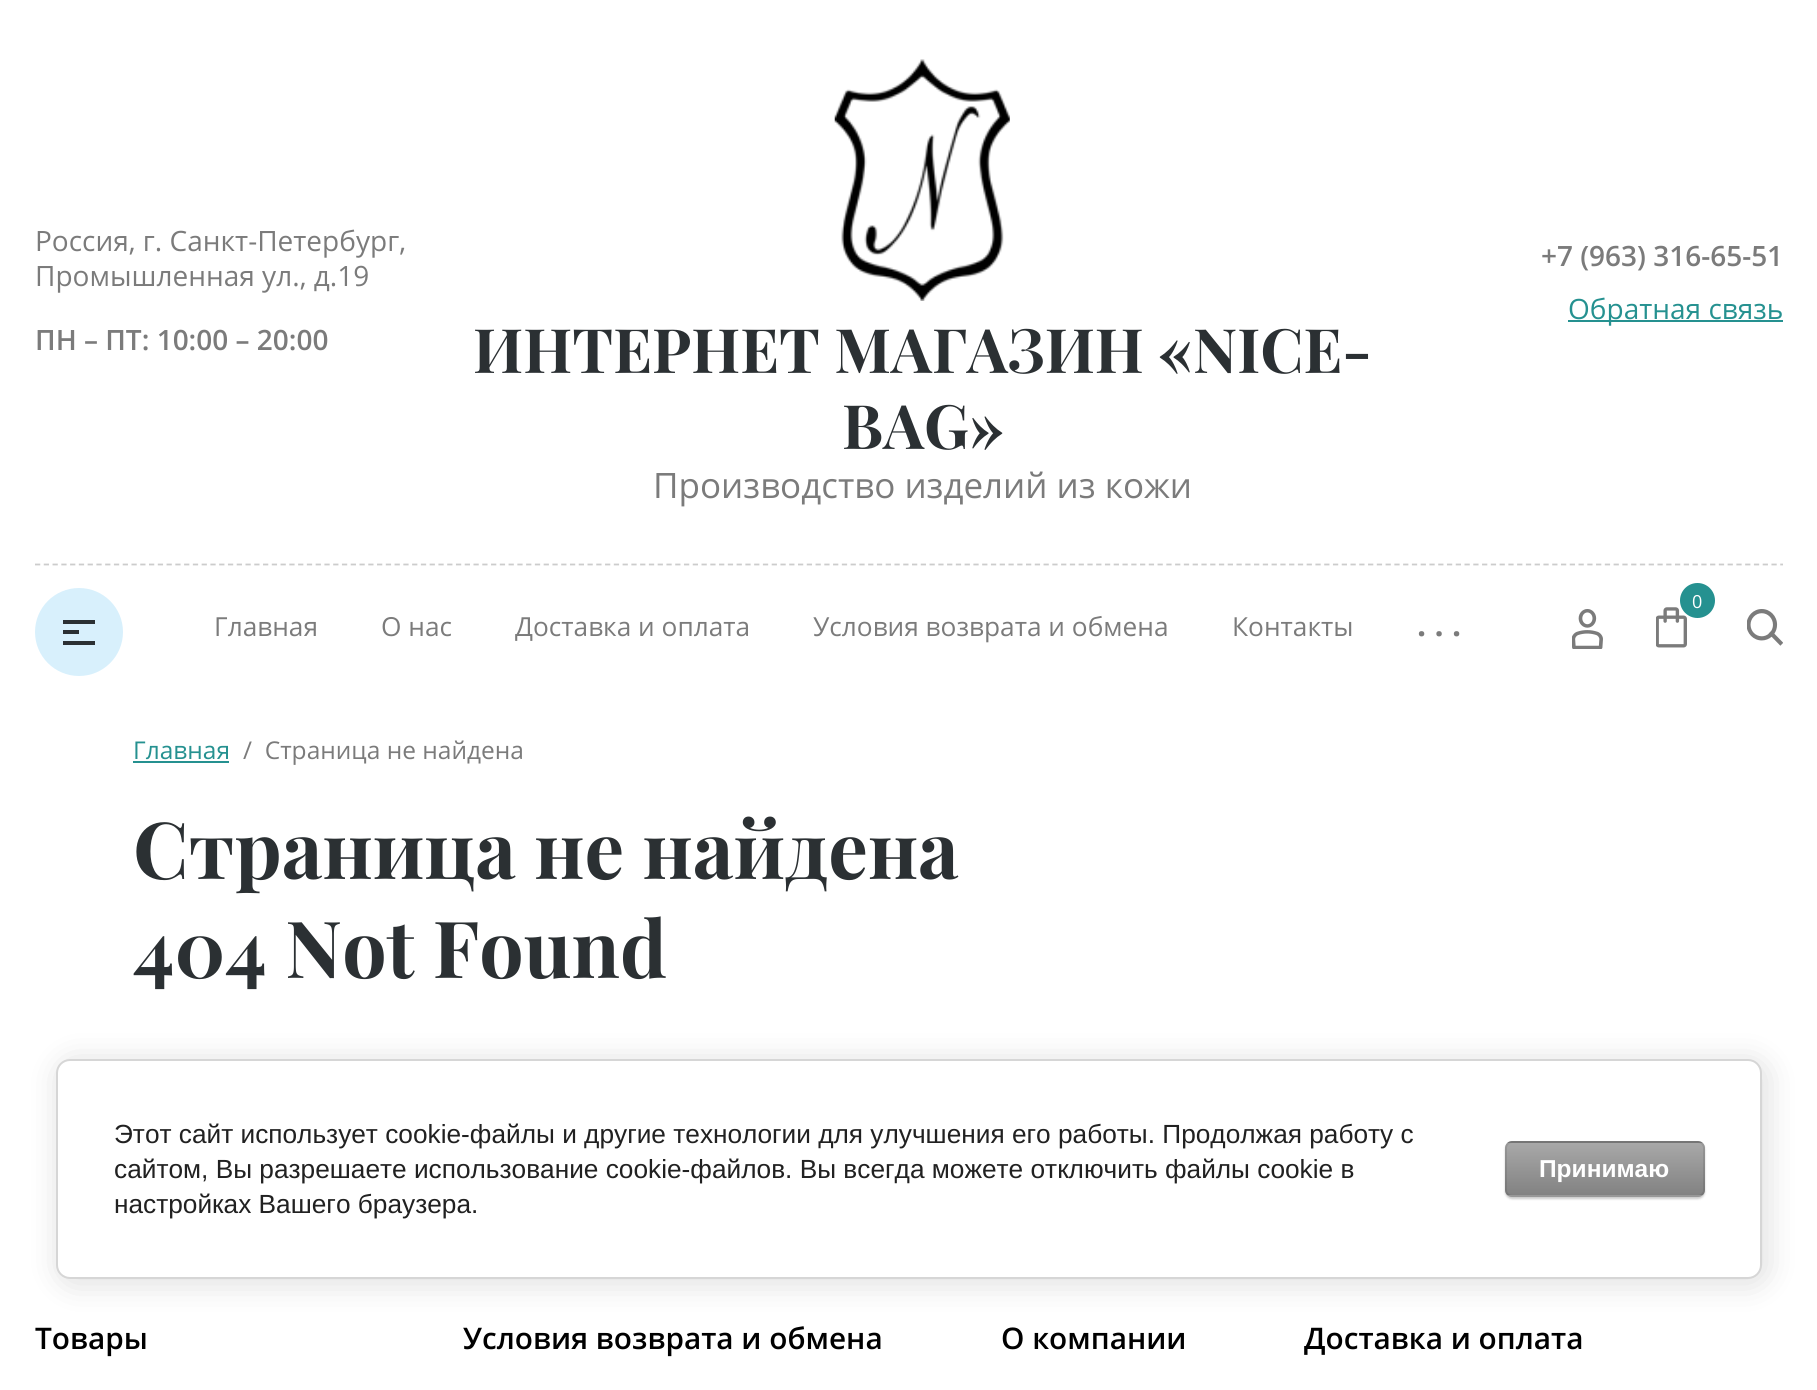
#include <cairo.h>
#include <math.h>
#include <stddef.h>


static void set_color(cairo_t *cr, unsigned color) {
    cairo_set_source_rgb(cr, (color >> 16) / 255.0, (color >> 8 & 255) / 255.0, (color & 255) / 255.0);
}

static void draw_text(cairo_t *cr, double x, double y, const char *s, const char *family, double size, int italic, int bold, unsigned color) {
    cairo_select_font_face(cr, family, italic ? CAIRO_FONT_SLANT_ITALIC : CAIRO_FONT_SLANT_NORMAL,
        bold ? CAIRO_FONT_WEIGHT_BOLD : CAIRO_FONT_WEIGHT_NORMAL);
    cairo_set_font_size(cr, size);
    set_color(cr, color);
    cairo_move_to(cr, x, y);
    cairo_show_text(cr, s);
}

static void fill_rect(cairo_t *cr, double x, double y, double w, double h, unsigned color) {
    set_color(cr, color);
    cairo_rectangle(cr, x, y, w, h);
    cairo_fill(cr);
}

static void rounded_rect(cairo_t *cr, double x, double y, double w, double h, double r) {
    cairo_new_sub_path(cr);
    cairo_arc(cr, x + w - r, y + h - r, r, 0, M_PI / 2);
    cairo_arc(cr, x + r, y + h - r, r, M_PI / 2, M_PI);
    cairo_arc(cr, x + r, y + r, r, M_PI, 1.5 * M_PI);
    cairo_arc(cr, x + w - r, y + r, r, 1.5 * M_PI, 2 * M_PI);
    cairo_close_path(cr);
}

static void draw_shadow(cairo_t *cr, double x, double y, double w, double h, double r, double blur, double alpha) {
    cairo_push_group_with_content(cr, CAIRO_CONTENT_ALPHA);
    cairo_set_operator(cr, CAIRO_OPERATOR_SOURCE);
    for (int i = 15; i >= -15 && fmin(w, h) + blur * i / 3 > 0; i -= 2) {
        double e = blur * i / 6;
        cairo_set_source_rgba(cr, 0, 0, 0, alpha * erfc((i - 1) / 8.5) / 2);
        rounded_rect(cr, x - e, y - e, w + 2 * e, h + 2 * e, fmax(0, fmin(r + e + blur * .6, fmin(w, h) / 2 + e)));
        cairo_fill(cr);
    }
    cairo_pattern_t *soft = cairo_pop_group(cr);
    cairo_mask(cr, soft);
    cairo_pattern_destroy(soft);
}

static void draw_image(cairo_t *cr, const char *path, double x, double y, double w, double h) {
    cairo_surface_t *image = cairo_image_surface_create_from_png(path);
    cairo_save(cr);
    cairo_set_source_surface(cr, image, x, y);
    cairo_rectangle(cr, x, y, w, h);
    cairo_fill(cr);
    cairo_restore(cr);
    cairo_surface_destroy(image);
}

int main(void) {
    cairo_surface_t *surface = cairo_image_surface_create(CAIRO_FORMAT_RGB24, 1817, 1390);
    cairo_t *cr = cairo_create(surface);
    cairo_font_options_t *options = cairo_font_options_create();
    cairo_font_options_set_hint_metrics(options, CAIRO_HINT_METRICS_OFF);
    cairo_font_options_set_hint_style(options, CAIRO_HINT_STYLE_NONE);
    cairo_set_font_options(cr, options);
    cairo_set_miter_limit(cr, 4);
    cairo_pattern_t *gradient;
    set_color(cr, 0xFFFFFF);
    cairo_paint(cr);
    cairo_new_path(cr);
    cairo_move_to(cr, 35, 564.5);
    cairo_line_to(cr, 1783, 564.5);
    set_color(cr, 0xCCCCCC);
    cairo_set_line_width(cr, 1.8);
    cairo_set_dash(cr, (double[]){5.25, 3.52}, 2, 0);
    cairo_stroke(cr);
    draw_text(cr, 35, 251, "Россия, г. Санкт-Петербург,", "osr", 28, 0, 0, 0x7B7B7B);
    draw_text(cr, 35, 286, "Промышленная ул., д.19", "osr", 28, 0, 0, 0x7B7B7B);
    draw_text(cr, 35, 350, "ПН – ПТ: 10:00 – 20:00", "Open Sans SemiBold", 28, 0, 0, 0x7B7B7B);
    draw_text(cr, 1541, 266, "+7 (963) 316-65-51", "Open Sans SemiBold", 28, 0, 0, 0x7B7B7B);
    fill_rect(cr, 1568, 320, 215, 2, 0x259190);
    draw_text(cr, 1568, 319, "Обратная связь", "osr", 28, 0, 0, 0x259190);
    draw_image(cr, "assets/img1.png", 834, 59, 176, 242);
    draw_text(cr, 473, 373, "ИНТЕРНЕТ МАГАЗИН «NICE-", "Playfair Display", 61.25, 0, 1, 0x2B3033);
    draw_text(cr, 842, 449, "BAG»", "Playfair Display", 61.25, 0, 1, 0x2B3033);
    draw_text(cr, 653, 498, "Производство изделий из кожи", "osr", 35, 0, 0, 0x7B7B7B);
    set_color(cr, 0xD8F0FC);
    cairo_new_path(cr);
    cairo_arc(cr, 79, 632, 44, 0, 2 * M_PI);
    cairo_fill(cr);
    fill_rect(cr, 63, 620, 32, 4, 0x2B3033);
    fill_rect(cr, 63, 630, 16, 4, 0x2B3033);
    fill_rect(cr, 63, 641, 32, 4, 0x2B3033);
    draw_image(cr, "assets/img2.png", 1656, 607, 31, 41);
    set_color(cr, 0x259190);
    cairo_arc(cr, 1697.5, 600.5, 17.5, 0, 2 * M_PI);
    cairo_fill(cr);
    draw_text(cr, 1692, 608, "0", "osr", 18, 0, 0, 0xFFFFFF);
    draw_image(cr, "assets/img3.png", 1572, 609, 31, 40);
    draw_image(cr, "assets/img4.png", 1747, 609, 36, 37);
    draw_text(cr, 214, 636, "Главная", "osr", 26.25, 0, 0, 0x7B7B7B);
    draw_text(cr, 381, 636, "О нас", "osr", 26.25, 0, 0, 0x7B7B7B);
    draw_text(cr, 515, 636, "Доставка и оплата", "osr", 26.25, 0, 0, 0x7B7B7B);
    draw_text(cr, 813, 636, "Условия возврата и обмена", "osr", 26.25, 0, 0, 0x7B7B7B);
    draw_text(cr, 1232, 636, "Контакты", "osr", 26.25, 0, 0, 0x7B7B7B);
    draw_text(cr, 1417, 636, ". . .", "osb", 32, 0, 1, 0x7B7B7B);
    draw_text(cr, 133, 759, "Главная", "osr", 24.5, 0, 0, 0x259190);
    fill_rect(cr, 133, 761, 96, 2, 0x259190);
    draw_text(cr, 243, 759, "/  Страница не найдена", "osr", 24.5, 0, 0, 0x7B7B7B);
    draw_text(cr, 133, 879, "Страница не найдена", "Playfair Display", 78.75, 0, 1, 0x2B3033);
    draw_text(cr, 133, 978, "404 Not Found", "Playfair Display", 78.75, 0, 1, 0x2B3033);
    draw_text(cr, 35, 1349, "Товары", "Open Sans SemiBold", 29.75, 0, 0, 0x000000);
    draw_text(cr, 463, 1349, "Условия возврата и обмена", "Open Sans SemiBold", 29.75, 0, 0, 0x000000);
    draw_text(cr, 1001, 1349, "О компании", "Open Sans SemiBold", 29.75, 0, 0, 0x000000);
    draw_text(cr, 1304, 1349, "Доставка и оплата", "Open Sans SemiBold", 29.75, 0, 0, 0x000000);
    set_color(cr, 0x000000);
    draw_shadow(cr, 60, 1062, 1706, 221, 14, 16, 0.14);
    set_color(cr, 0xFFFFFF);
    rounded_rect(cr, 57, 1060, 1704, 218, 13);
    cairo_fill_preserve(cr);
    set_color(cr, 0xD6D6D6);
    cairo_set_line_width(cr, 2);
    cairo_set_dash(cr, NULL, 0, 0);
    cairo_stroke(cr);
    draw_text(cr, 114, 1143, "Этот сайт использует cookie-файлы и другие технологии для улучшения его работы. Продолжая работу с", "Liberation Sans", 26.25, 0, 0, 0x212121);
    draw_text(cr, 114, 1178, "сайтом, Вы разрешаете использование cookie-файлов. Вы всегда можете отключить файлы cookie в", "Liberation Sans", 26.25, 0, 0, 0x212121);
    draw_text(cr, 114, 1213, "настройках Вашего браузера.", "Liberation Sans", 26.25, 0, 0, 0x212121);
    set_color(cr, 0x000000);
    draw_shadow(cr, 1505, 1143, 200, 56, 7, 1, 0.2);
    cairo_save(cr);
    rounded_rect(cr, 1505, 1141, 200, 56, 7);
    cairo_clip(cr);
    gradient = cairo_pattern_create_linear(1605, 1090, 1605, 1143);
    cairo_pattern_add_color_stop_rgba(gradient, 0, 0.659, 0.659, 0.659, 1);
    cairo_pattern_add_color_stop_rgba(gradient, 1, 0.51, 0.51, 0.51, 1);
    cairo_set_source(cr, gradient);
    cairo_pattern_destroy(gradient);
    cairo_rectangle(cr, 1505, 1141, 200, 2);
    cairo_fill(cr);
    gradient = cairo_pattern_create_linear(1605, 1143, 1605, 1195);
    cairo_pattern_add_color_stop_rgba(gradient, 0, 0.659, 0.659, 0.659, 1);
    cairo_pattern_add_color_stop_rgba(gradient, 1, 0.51, 0.51, 0.51, 1);
    cairo_set_source(cr, gradient);
    cairo_pattern_destroy(gradient);
    cairo_rectangle(cr, 1505, 1143, 200, 52);
    cairo_fill(cr);
    gradient = cairo_pattern_create_linear(1605, 1195, 1605, 1248);
    cairo_pattern_add_color_stop_rgba(gradient, 0, 0.659, 0.659, 0.659, 1);
    cairo_pattern_add_color_stop_rgba(gradient, 1, 0.51, 0.51, 0.51, 1);
    cairo_set_source(cr, gradient);
    cairo_pattern_destroy(gradient);
    cairo_rectangle(cr, 1505, 1195, 200, 2);
    cairo_fill(cr);
    cairo_restore(cr);
    rounded_rect(cr, 1506, 1142, 198, 54, 6);
    cairo_set_source_rgba(cr, 0, 0, 0, 0.1);
    cairo_stroke(cr);
    draw_text(cr, 1539, 1177, "Принимаю", "Liberation Sans", 24.5, 0, 1, 0xFFFFFF);
    cairo_surface_write_to_png(surface, "output.png");
    cairo_font_options_destroy(options);
    cairo_destroy(cr);
    cairo_surface_destroy(surface);
    return 0;
}
